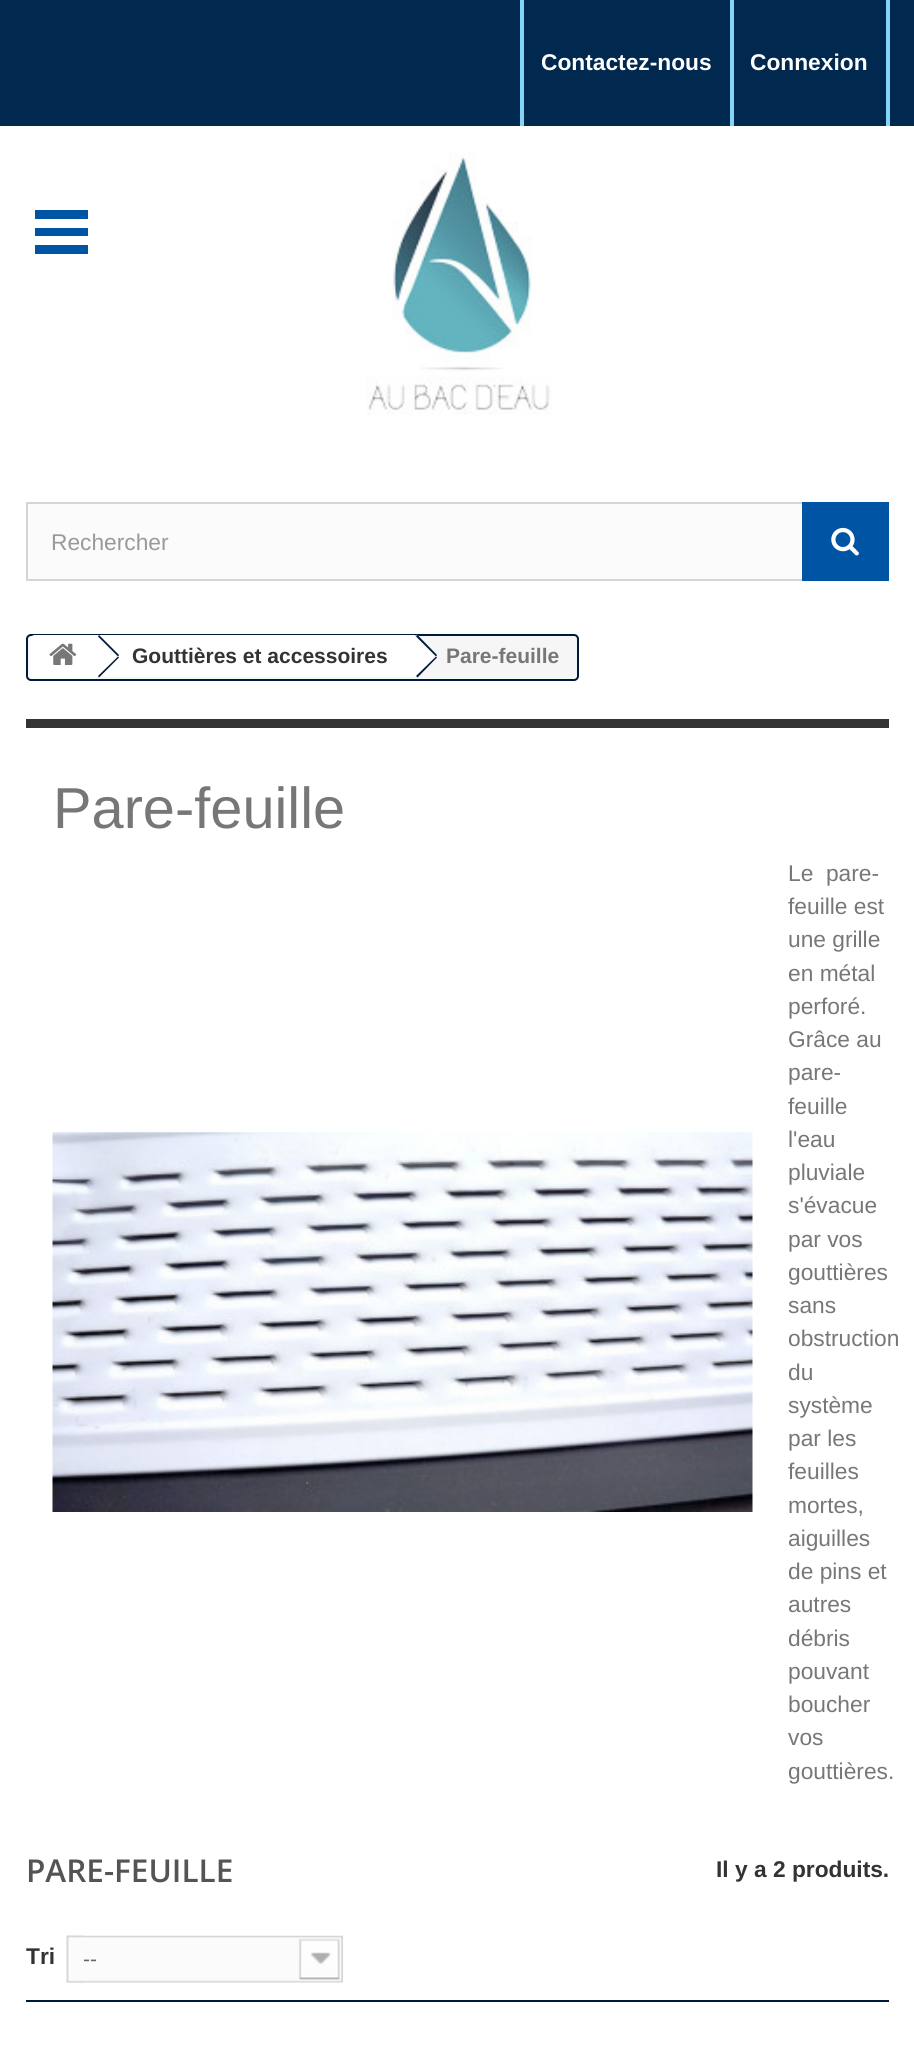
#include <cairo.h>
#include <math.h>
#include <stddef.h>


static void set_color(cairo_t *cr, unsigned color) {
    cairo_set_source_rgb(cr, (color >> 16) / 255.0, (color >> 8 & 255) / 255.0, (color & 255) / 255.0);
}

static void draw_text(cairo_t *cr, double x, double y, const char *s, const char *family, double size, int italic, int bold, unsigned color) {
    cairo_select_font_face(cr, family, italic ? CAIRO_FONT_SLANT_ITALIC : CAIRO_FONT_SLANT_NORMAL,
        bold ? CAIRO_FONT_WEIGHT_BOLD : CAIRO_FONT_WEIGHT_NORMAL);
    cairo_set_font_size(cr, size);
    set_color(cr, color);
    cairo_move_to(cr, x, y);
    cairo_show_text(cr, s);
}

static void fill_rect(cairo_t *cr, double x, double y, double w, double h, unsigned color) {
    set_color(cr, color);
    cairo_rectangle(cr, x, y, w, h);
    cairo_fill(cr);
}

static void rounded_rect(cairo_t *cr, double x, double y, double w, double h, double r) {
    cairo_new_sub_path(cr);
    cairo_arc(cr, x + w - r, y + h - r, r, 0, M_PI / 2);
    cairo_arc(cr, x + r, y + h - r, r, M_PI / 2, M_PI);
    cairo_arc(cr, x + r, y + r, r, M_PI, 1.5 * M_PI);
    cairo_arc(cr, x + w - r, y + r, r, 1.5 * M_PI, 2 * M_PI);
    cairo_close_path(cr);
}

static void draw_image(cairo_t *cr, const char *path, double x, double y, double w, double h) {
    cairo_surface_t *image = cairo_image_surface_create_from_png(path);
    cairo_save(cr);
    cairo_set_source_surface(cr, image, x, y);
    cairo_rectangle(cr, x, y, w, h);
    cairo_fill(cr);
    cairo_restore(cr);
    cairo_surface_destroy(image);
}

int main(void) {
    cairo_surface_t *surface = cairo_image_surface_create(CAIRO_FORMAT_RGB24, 914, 2060);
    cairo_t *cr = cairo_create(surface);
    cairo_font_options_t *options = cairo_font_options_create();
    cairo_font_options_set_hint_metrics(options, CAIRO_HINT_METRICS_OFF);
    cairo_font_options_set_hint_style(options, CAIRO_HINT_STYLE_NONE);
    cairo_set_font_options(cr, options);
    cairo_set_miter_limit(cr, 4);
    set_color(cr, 0xFFFFFF);
    cairo_paint(cr);
    fill_rect(cr, 0, 0, 914, 126, 0x01284E);
    fill_rect(cr, 520, 0, 4, 126, 0x83D4F6);
    draw_text(cr, 541, 70, "Contactez-nous", "Liberation Sans", 22.75, 0, 1, 0xFFFFFF);
    fill_rect(cr, 886, 0, 4, 126, 0x83D4F6);
    fill_rect(cr, 730, 0, 4, 126, 0x83D4F6);
    draw_text(cr, 750, 70, "Connexion", "Liberation Sans", 22.75, 0, 1, 0xFFFFFF);
    fill_rect(cr, 35, 210, 53, 9, 0x0054A4);
    fill_rect(cr, 35, 228, 53, 8, 0x0054A4);
    fill_rect(cr, 35, 245, 53, 9, 0x0054A4);
    draw_image(cr, "assets/img1.png", 366, 152, 186, 263);
    fill_rect(cr, 28, 504, 774, 75, 0xFBFBFB);
    cairo_rectangle(cr, 27, 503, 861, 77);
    set_color(cr, 0xD6D4D4);
    cairo_stroke(cr);
    draw_text(cr, 51, 550, "Rechercher", "Liberation Sans", 22.75, 0, 0, 0x999999);
    fill_rect(cr, 802, 502, 87, 79, 0x0054A4);
    draw_image(cr, "assets/img2.png", 831, 527, 28, 29);
    set_color(cr, 0xF6F6F6);
    rounded_rect(cr, 27, 635, 551, 45, 4);
    cairo_fill_preserve(cr);
    set_color(cr, 0x00183A);
    cairo_stroke(cr);
    set_color(cr, 0xFFFFFF);
    cairo_new_path(cr);
    cairo_move_to(cr, 35, 635);
    cairo_line_to(cr, 96, 635);
    cairo_line_to(cr, 96, 679);
    cairo_line_to(cr, 35, 679);
    cairo_curve_to(cr, 32, 679, 30, 677, 30, 674);
    cairo_line_to(cr, 30, 640);
    cairo_curve_to(cr, 30, 637, 32, 635, 35, 635);
    cairo_close_path(cr);
    cairo_fill(cr);
    draw_image(cr, "assets/img3.png", 49, 643, 28, 22);
    fill_rect(cr, 96, 635, 319, 42, 0xFFFFFF);
    set_color(cr, 0x00183A);
    cairo_new_path(cr);
    cairo_move_to(cr, 99, 635);
    cairo_line_to(cr, 119, 655);
    cairo_line_to(cr, 118, 656.5);
    cairo_line_to(cr, 98, 636.5);
    cairo_close_path(cr);
    cairo_fill(cr);
    cairo_new_path(cr);
    cairo_move_to(cr, 118, 656.5);
    cairo_line_to(cr, 119, 657.5);
    cairo_line_to(cr, 99, 677.5);
    cairo_line_to(cr, 98, 676);
    cairo_close_path(cr);
    cairo_fill(cr);
    draw_text(cr, 132, 663, "Gouttières et accessoires", "Liberation Sans", 21, 0, 1, 0x333333);
    set_color(cr, 0xFFFFFF);
    cairo_new_path(cr);
    cairo_move_to(cr, 419, 636);
    cairo_line_to(cr, 436, 654);
    cairo_curve_to(cr, 437, 655, 437, 657, 436, 659);
    cairo_line_to(cr, 419, 676);
    cairo_curve_to(cr, 417, 677, 415, 677, 414, 676);
    cairo_line_to(cr, 396, 659);
    cairo_curve_to(cr, 395, 657, 395, 655, 396, 654);
    cairo_line_to(cr, 414, 636);
    cairo_curve_to(cr, 415, 635, 417, 635, 419, 636);
    cairo_close_path(cr);
    cairo_fill(cr);
    set_color(cr, 0x00183A);
    cairo_new_path(cr);
    cairo_move_to(cr, 417.5, 635);
    cairo_line_to(cr, 437, 655);
    cairo_line_to(cr, 436, 656.5);
    cairo_line_to(cr, 416, 636.5);
    cairo_close_path(cr);
    cairo_fill(cr);
    cairo_new_path(cr);
    cairo_move_to(cr, 436, 656.5);
    cairo_line_to(cr, 437, 657.5);
    cairo_line_to(cr, 417.5, 677.5);
    cairo_line_to(cr, 416, 676);
    cairo_close_path(cr);
    cairo_fill(cr);
    draw_text(cr, 446, 663, "Pare-feuille", "Liberation Sans", 21, 0, 1, 0x777777);
    fill_rect(cr, 26, 719, 863, 9, 0x333333);
    draw_text(cr, 53, 828, "Pare-feuille", "Liberation Sans", 57.75, 0, 0, 0x777777);
    draw_image(cr, "assets/img4.png", 52, 1132, 701, 380);
    draw_text(cr, 788, 881, "Le  pare-", "Liberation Sans", 22.75, 0, 0, 0x777777);
    draw_text(cr, 788, 914, "feuille est", "Liberation Sans", 22.75, 0, 0, 0x777777);
    draw_text(cr, 788, 947, "une grille", "Liberation Sans", 22.75, 0, 0, 0x777777);
    draw_text(cr, 788, 981, "en métal", "Liberation Sans", 22.75, 0, 0, 0x777777);
    draw_text(cr, 788, 1014, "perforé.", "Liberation Sans", 22.75, 0, 0, 0x777777);
    draw_text(cr, 788, 1047, "Grâce au", "Liberation Sans", 22.75, 0, 0, 0x777777);
    draw_text(cr, 788, 1080, "pare-", "Liberation Sans", 22.75, 0, 0, 0x777777);
    draw_text(cr, 788, 1114, "feuille", "Liberation Sans", 22.75, 0, 0, 0x777777);
    draw_text(cr, 788, 1147, "l'eau", "Liberation Sans", 22.75, 0, 0, 0x777777);
    draw_text(cr, 788, 1180, "pluviale", "Liberation Sans", 22.75, 0, 0, 0x777777);
    draw_text(cr, 788, 1213, "s'évacue", "Liberation Sans", 22.75, 0, 0, 0x777777);
    draw_text(cr, 788, 1247, "par vos", "Liberation Sans", 22.75, 0, 0, 0x777777);
    draw_text(cr, 788, 1280, "gouttières", "Liberation Sans", 22.75, 0, 0, 0x777777);
    draw_text(cr, 788, 1313, "sans", "Liberation Sans", 22.75, 0, 0, 0x777777);
    draw_text(cr, 788, 1346, "obstruction", "Liberation Sans", 22.75, 0, 0, 0x777777);
    draw_text(cr, 788, 1380, "du", "Liberation Sans", 22.75, 0, 0, 0x777777);
    draw_text(cr, 788, 1413, "système", "Liberation Sans", 22.75, 0, 0, 0x777777);
    draw_text(cr, 788, 1446, "par les", "Liberation Sans", 22.75, 0, 0, 0x777777);
    draw_text(cr, 788, 1479, "feuilles", "Liberation Sans", 22.75, 0, 0, 0x777777);
    draw_text(cr, 788, 1513, "mortes,", "Liberation Sans", 22.75, 0, 0, 0x777777);
    draw_text(cr, 788, 1546, "aiguilles", "Liberation Sans", 22.75, 0, 0, 0x777777);
    draw_text(cr, 788, 1579, "de pins et", "Liberation Sans", 22.75, 0, 0, 0x777777);
    draw_text(cr, 788, 1612, "autres", "Liberation Sans", 22.75, 0, 0, 0x777777);
    draw_text(cr, 788, 1646, "débris", "Liberation Sans", 22.75, 0, 0, 0x777777);
    draw_text(cr, 788, 1679, "pouvant", "Liberation Sans", 22.75, 0, 0, 0x777777);
    draw_text(cr, 788, 1712, "boucher", "Liberation Sans", 22.75, 0, 0, 0x777777);
    draw_text(cr, 788, 1745, "vos", "Liberation Sans", 22.75, 0, 0, 0x777777);
    draw_text(cr, 788, 1779, "gouttières.", "Liberation Sans", 22.75, 0, 0, 0x777777);
    draw_text(cr, 26, 1882, "PARE-FEUILLE", "Open Sans SemiBold", 31.5, 0, 0, 0x555454);
    draw_text(cr, 716, 1877, "Il y a 2 produits.", "Liberation Sans", 22.75, 0, 1, 0x333333);
    fill_rect(cr, 26, 2000, 863, 2, 0x00183A);
    draw_text(cr, 26, 1964, "Tri", "Liberation Sans", 22.75, 0, 1, 0x333333);
    draw_image(cr, "assets/img5.png", 66, 1935, 19, 48);
    draw_image(cr, "assets/img6.png", 84, 1935, 259, 48);
    draw_text(cr, 83, 1966, "--", "Liberation Sans", 21, 0, 0, 0x666666);
    cairo_surface_write_to_png(surface, "output.png");
    cairo_font_options_destroy(options);
    cairo_destroy(cr);
    cairo_surface_destroy(surface);
    return 0;
}
